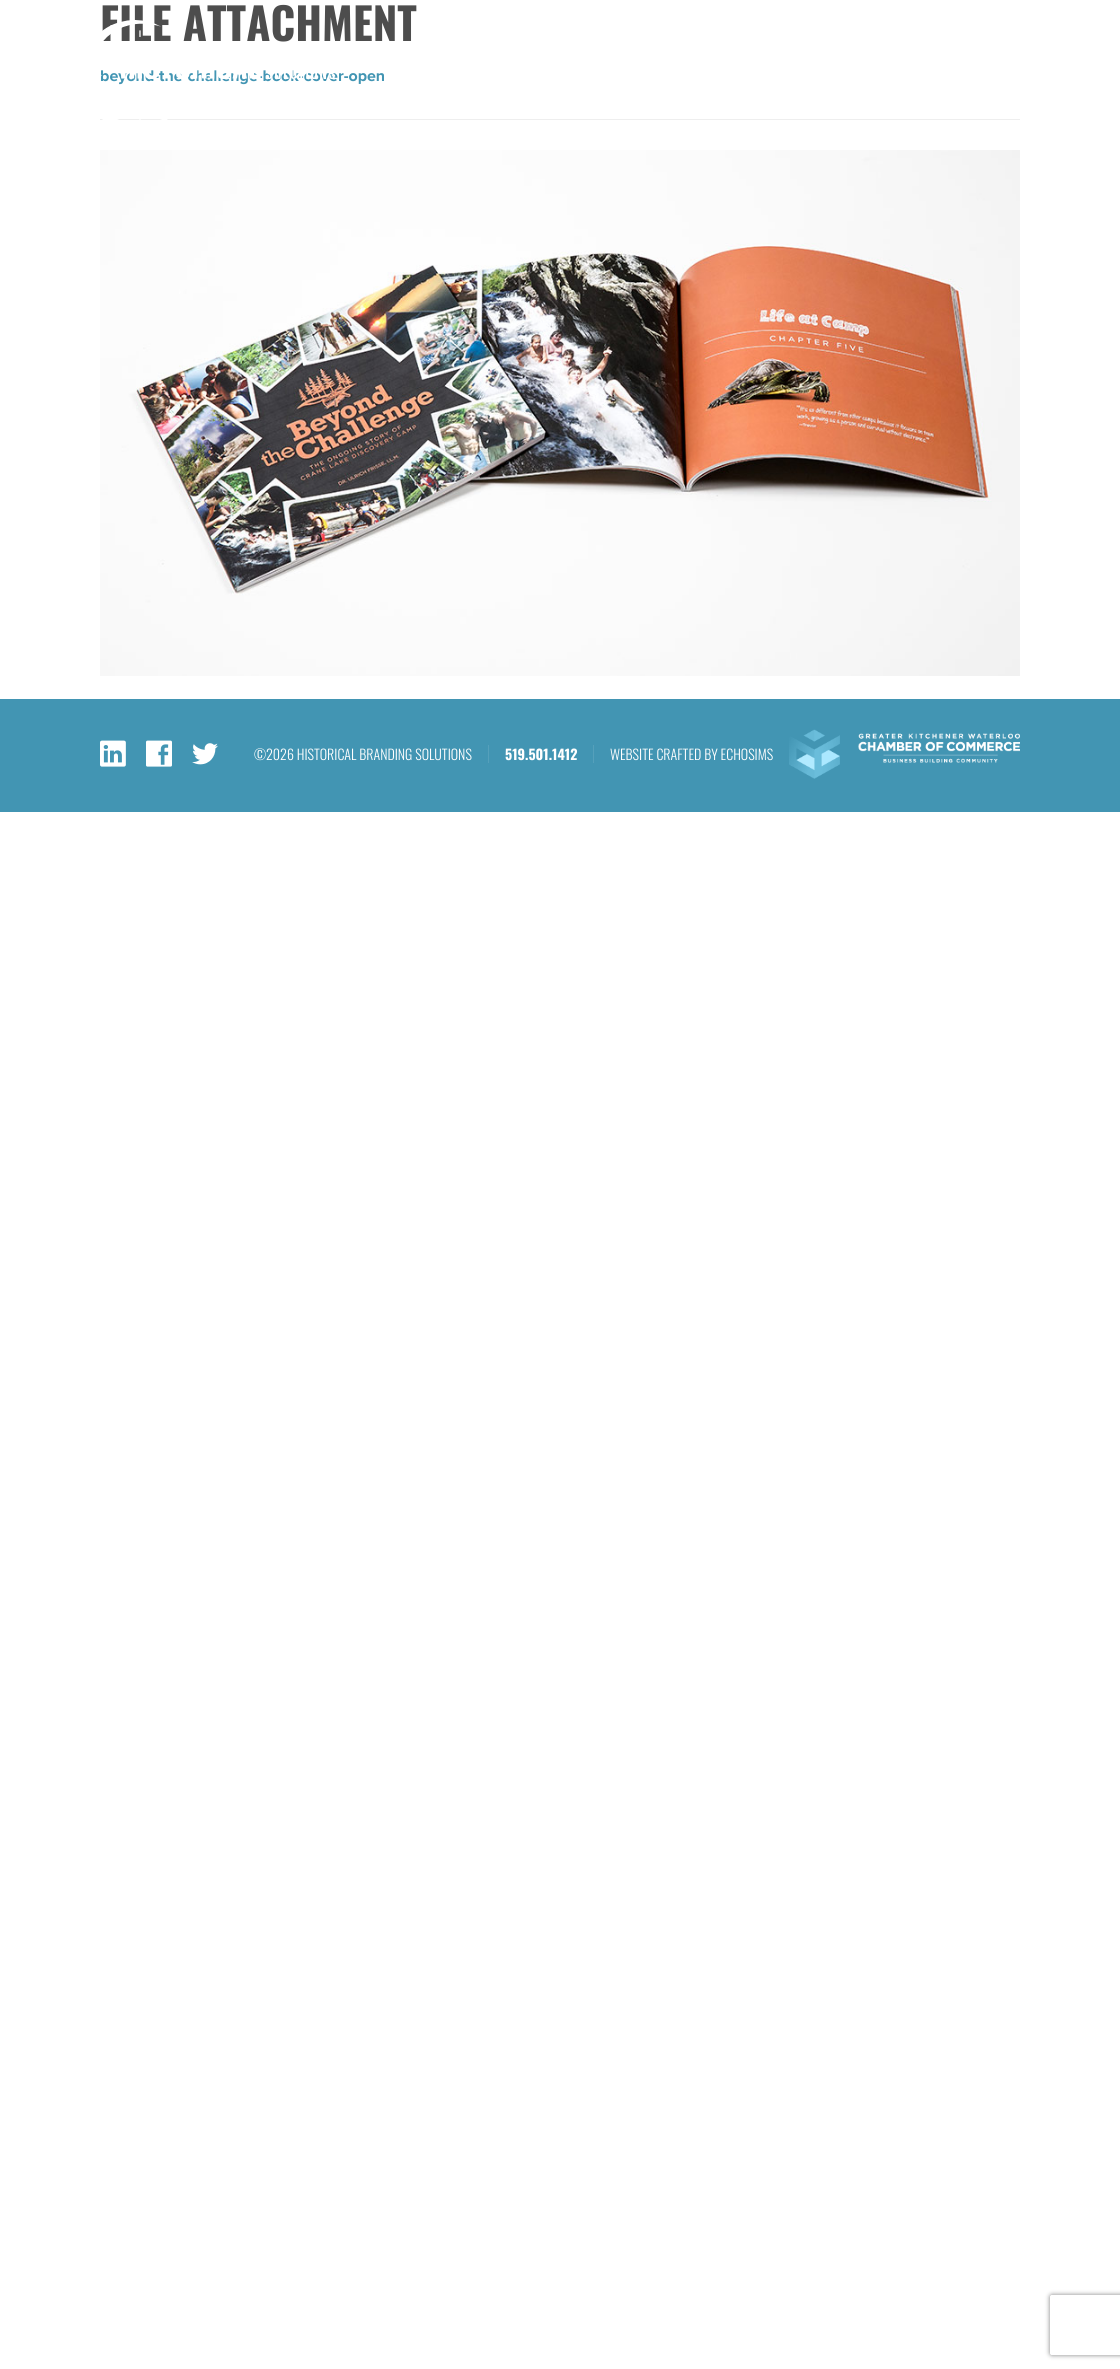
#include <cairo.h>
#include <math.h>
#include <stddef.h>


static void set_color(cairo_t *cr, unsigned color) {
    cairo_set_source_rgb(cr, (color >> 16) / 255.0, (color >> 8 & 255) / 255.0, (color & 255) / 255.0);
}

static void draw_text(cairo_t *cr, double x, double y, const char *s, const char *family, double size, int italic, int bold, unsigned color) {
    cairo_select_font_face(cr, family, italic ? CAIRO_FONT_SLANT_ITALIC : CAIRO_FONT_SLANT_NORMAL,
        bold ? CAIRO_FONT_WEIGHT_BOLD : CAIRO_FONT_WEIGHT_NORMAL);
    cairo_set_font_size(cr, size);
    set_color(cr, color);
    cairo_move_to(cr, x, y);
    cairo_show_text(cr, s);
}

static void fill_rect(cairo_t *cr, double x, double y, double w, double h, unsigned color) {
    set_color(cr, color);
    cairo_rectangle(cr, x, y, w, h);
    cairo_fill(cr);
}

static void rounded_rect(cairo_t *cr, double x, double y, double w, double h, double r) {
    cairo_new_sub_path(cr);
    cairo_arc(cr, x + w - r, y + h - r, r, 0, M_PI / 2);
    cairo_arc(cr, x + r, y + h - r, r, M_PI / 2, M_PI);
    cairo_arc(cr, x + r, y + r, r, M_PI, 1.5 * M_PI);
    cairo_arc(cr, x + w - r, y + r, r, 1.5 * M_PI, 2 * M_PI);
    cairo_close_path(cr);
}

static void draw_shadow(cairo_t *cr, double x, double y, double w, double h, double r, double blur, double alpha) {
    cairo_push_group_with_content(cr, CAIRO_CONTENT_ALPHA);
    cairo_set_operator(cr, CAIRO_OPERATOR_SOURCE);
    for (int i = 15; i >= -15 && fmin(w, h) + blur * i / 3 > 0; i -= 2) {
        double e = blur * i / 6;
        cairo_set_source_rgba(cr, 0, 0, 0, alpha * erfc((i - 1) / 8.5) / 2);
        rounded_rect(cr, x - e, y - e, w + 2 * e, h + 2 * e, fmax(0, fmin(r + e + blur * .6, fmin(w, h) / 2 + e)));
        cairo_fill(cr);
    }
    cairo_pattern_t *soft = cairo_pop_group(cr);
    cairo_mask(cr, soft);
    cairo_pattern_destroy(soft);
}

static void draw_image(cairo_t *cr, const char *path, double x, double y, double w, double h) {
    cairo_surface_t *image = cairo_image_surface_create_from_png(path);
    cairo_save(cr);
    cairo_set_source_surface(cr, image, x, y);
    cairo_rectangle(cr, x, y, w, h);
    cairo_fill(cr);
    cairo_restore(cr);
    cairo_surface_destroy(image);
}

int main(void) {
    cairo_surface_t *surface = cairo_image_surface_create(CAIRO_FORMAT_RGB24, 1120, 2369);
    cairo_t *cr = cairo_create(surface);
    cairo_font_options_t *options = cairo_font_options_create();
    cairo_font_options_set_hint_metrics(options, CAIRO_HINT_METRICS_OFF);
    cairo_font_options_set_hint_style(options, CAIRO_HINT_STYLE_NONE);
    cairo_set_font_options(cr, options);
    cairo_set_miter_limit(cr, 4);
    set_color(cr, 0xFFFFFF);
    cairo_paint(cr);
    draw_text(cr, 100, 41, "FILE ATTACHMENT", "Oswald", 44, 0, 1, 0x4D4D4D);
    draw_text(cr, 100, 81, "beyond-the-challenge-book-cover-open", "Proxima Nova", 16, 0, 1, 0x4295B3);
    fill_rect(cr, 100, 119, 920, 1, 0xEEEEEE);
    draw_image(cr, "assets/img1.png", 100, 150, 920, 526);
    draw_image(cr, "assets/img2.png", 101, 20, 234, 100);
    fill_rect(cr, 0, 699, 1120, 113, 0x4295B3);
    draw_image(cr, "assets/img3.png", 100, 740, 26, 27);
    draw_image(cr, "assets/img4.png", 146, 740, 26, 27);
    draw_image(cr, "assets/img5.png", 192, 743, 26, 22);
    fill_rect(cr, 488, 745, 1, 18, 0x55A0BB);
    draw_text(cr, 254, 760, "©2026 HISTORICAL BRANDING SOLUTIONS", "Oswald Light", 14, 0, 0, 0xFFFFFF);
    fill_rect(cr, 593, 745, 1, 18, 0x55A0BB);
    draw_text(cr, 505, 760, "519.501.1412", "Oswald", 14, 0, 1, 0xFFFFFF);
    draw_text(cr, 610, 760, "WEBSITE CRAFTED BY ECHOSIMS", "Oswald Light", 14, 0, 0, 0xFFFFFF);
    draw_image(cr, "assets/img6.png", 789, 729, 231, 50);
    cairo_save(cr);
    cairo_set_fill_rule(cr, CAIRO_FILL_RULE_EVEN_ODD);
    cairo_new_path(cr);
    cairo_move_to(cr, 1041, 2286);
    cairo_line_to(cr, 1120, 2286);
    cairo_line_to(cr, 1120, 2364);
    cairo_line_to(cr, 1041, 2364);
    cairo_close_path(cr);
    cairo_move_to(cr, 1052, 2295);
    cairo_line_to(cr, 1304, 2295);
    cairo_curve_to(cr, 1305, 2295, 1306, 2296, 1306, 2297);
    cairo_line_to(cr, 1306, 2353);
    cairo_curve_to(cr, 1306, 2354, 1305, 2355, 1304, 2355);
    cairo_line_to(cr, 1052, 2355);
    cairo_curve_to(cr, 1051, 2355, 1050, 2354, 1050, 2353);
    cairo_line_to(cr, 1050, 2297);
    cairo_curve_to(cr, 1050, 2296, 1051, 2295, 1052, 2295);
    cairo_close_path(cr);
    cairo_clip(cr);
    set_color(cr, 0x808080);
    draw_shadow(cr, 1050, 2295, 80, 60, 2, 2.5, 1);
    cairo_restore(cr);
    cairo_surface_write_to_png(surface, "output.png");
    cairo_font_options_destroy(options);
    cairo_destroy(cr);
    cairo_surface_destroy(surface);
    return 0;
}
